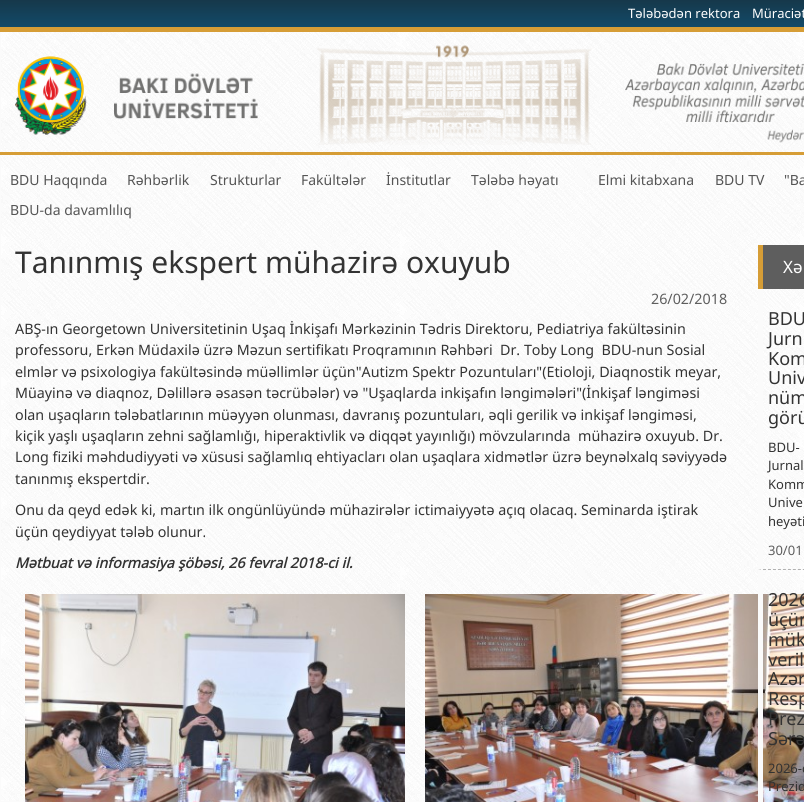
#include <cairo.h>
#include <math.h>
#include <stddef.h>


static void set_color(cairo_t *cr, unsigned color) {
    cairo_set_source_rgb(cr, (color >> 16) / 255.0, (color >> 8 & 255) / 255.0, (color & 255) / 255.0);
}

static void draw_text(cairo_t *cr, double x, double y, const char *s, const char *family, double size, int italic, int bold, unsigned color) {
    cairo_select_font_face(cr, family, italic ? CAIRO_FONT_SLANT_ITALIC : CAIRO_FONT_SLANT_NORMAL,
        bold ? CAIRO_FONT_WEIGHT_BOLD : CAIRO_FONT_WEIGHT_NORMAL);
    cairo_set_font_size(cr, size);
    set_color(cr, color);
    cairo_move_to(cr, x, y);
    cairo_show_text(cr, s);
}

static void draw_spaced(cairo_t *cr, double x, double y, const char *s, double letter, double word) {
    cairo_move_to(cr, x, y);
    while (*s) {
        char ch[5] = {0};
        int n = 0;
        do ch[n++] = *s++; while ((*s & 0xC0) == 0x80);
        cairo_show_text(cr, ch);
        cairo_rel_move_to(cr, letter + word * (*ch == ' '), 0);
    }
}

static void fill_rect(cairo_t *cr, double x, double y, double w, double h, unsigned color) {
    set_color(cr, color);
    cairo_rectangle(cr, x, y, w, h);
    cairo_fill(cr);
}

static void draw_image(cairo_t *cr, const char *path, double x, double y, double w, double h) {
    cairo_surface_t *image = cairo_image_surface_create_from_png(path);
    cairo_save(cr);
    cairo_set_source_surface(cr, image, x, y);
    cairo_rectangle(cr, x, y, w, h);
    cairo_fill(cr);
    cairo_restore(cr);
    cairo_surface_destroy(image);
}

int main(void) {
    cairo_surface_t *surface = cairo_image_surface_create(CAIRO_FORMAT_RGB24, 804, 802);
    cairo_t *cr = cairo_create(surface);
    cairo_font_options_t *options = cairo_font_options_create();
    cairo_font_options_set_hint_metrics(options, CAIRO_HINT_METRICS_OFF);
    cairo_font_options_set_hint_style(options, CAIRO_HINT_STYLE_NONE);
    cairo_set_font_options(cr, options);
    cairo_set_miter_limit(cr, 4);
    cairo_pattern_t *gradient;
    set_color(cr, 0xFBFBFB);
    cairo_paint(cr);
    draw_image(cr, "assets/img1.png", 1, 32, 803, 769);
    fill_rect(cr, 0, 152, 804, 3, 0xD69D36);
    gradient = cairo_pattern_create_linear(500, 0, 500, 27);
    cairo_pattern_add_color_stop_rgba(gradient, 0, 0.086, 0.22, 0.29, 1);
    cairo_pattern_add_color_stop_rgba(gradient, 1, 0.071, 0.29, 0.412, 1);
    cairo_set_source(cr, gradient);
    cairo_pattern_destroy(gradient);
    cairo_rectangle(cr, 0, 0, 804, 27);
    cairo_fill(cr);
    fill_rect(cr, 0, 27, 804, 5, 0xD69D36);
    draw_text(cr, 628, 18, "Tələbədən rektora", "Noto Sans", 13, 0, 0, 0xFFFFFF);
    draw_text(cr, 752, 18, "Müraciət", "Noto Sans", 13, 0, 0, 0xFFFFFF);
    draw_image(cr, "assets/img2.png", 15, 45, 789, 100);
    draw_text(cr, 10, 185, "BDU Haqqında", "Noto Sans", 14, 0, 0, 0x555555);
    draw_text(cr, 127, 185, "Rəhbərlik", "Noto Sans", 14, 0, 0, 0x555555);
    draw_text(cr, 210, 185, "Strukturlar", "Noto Sans", 14, 0, 0, 0x555555);
    draw_text(cr, 301, 185, "Fakültələr", "Noto Sans", 14, 0, 0, 0x555555);
    draw_text(cr, 386, 185, "İnstitutlar", "Noto Sans", 14, 0, 0, 0x555555);
    draw_text(cr, 471, 185, "Tələbə həyatı", "Noto Sans", 14, 0, 0, 0x555555);
    draw_text(cr, 598, 185, "Elmi kitabxana", "Noto Sans", 14, 0, 0, 0x555555);
    draw_text(cr, 715, 185, "BDU TV", "Noto Sans", 14, 0, 0, 0x555555);
    draw_text(cr, 784, 185, "\"Ba", "Noto Sans", 14, 0, 0, 0x555555);
    draw_text(cr, 10, 215, "BDU-da davamlılıq", "Noto Sans", 14, 0, 0, 0x555555);
    draw_text(cr, 15, 273, "Tanınmış ekspert mühazirə oxuyub", "Noto Sans", 30, 0, 0, 0x333333);
    draw_text(cr, 651, 304, "26/02/2018", "Noto Sans", 14.3, 0, 0, 0x5E5E5E);
    draw_text(cr, 15, 334, "ABŞ-ın Georgetown Universitetinin Uşaq İnkişafı Mərkəzinin Tədris Direktoru, Pediatriya fakültəsinin", "Noto Sans", 14.3, 0, 0, 0x333333);
    draw_text(cr, 15, 355, "professoru, Erkən Müdaxilə üzrə Məzun sertifikatı Proqramının Rəhbəri", "Noto Sans", 14.3, 0, 0, 0x333333);
    draw_text(cr, 500, 355, "Dr. Toby Long  BDU-nun Sosial", "Noto Sans", 14.3, 0, 0, 0x333333);
    draw_text(cr, 15, 377, "elmlər və psixologiya fakültəsində müəllimlər üçün\"Autizm Spektr Pozuntuları\"(Etioloji, Diaqnostik meyar,", "Noto Sans", 14.3, 0, 0, 0x333333);
    draw_text(cr, 15, 398, "Müayinə və diaqnoz, Dəlillərə əsasən təcrübələr) və \"Uşaqlarda inkişafın ləngimələri\"(İnkişaf ləngiməsi", "Noto Sans", 14.3, 0, 0, 0x333333);
    draw_text(cr, 15, 420, "olan uşaqların tələbatlarının müəyyən olunması, davranış pozuntuları, əqli gerilik və inkişaf ləngiməsi,", "Noto Sans", 14.3, 0, 0, 0x333333);
    draw_text(cr, 15, 441, "kiçik yaşlı uşaqların zehni sağlamlığı, hiperaktivlik və diqqət yayınlığı) mövzularında  mühazirə oxuyub. Dr.", "Noto Sans", 14.3, 0, 0, 0x333333);
    draw_text(cr, 15, 462, "Long fiziki məhdudiyyəti və xüsusi sağlamlıq ehtiyacları olan uşaqlara xidmətlər üzrə beynəlxalq səviyyədə", "Noto Sans", 14.3, 0, 0, 0x333333);
    draw_text(cr, 15, 484, "tanınmış ekspertdir.", "Noto Sans", 14.3, 0, 0, 0x333333);
    draw_text(cr, 15, 515, "Onu da qeyd edək ki, martın ilk ongünlüyündə mühazirələr ictimaiyyətə açıq olacaq. Seminarda iştirak", "Noto Sans", 14.3, 0, 0, 0x333333);
    draw_text(cr, 15, 537, "üçün qeydiyyat tələb olunur.", "Noto Sans", 14.3, 0, 0, 0x333333);
    draw_text(cr, 15, 568, "Mətbuat və informasiya şöbəsi, 26 fevral 2018-ci il.", "Noto Sans", 14.3, 1, 1, 0x333333);
    draw_image(cr, "assets/img3.png", 25, 594, 380, 208);
    draw_image(cr, "assets/img4.png", 425, 594, 379, 208);
    fill_rect(cr, 763, 245, 41, 44, 0x5E5E5E);
    fill_rect(cr, 758, 245, 5, 44, 0xD69D36);
    draw_text(cr, 783, 273, "Xə", "Noto Sans", 17, 0, 0, 0xFFFFFF);
    cairo_new_path(cr);
    cairo_move_to(cr, 758, 569.5);
    cairo_line_to(cr, 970, 569.5);
    set_color(cr, 0xB1B1B1);
    cairo_set_line_width(cr, 1);
    cairo_set_dash(cr, (double[]){3, 1.98}, 2, 0);
    cairo_stroke(cr);
    set_color(cr, 0xFBFBFB);
    cairo_new_path(cr);
    cairo_move_to(cr, 758, 570);
    cairo_line_to(cr, 758, 289);
    cairo_line_to(cr, 763, 289);
    cairo_line_to(cr, 763, 569);
    cairo_close_path(cr);
    cairo_fill(cr);
    draw_text(cr, 768, 325, "BDU", "Noto Sans", 18, 0, 0, 0x333333);
    draw_text(cr, 768, 345, "Jurn", "Noto Sans", 18, 0, 0, 0x333333);
    draw_text(cr, 768, 365, "Kom", "Noto Sans", 18, 0, 0, 0x333333);
    draw_text(cr, 768, 384, "Univ", "Noto Sans", 18, 0, 0, 0x333333);
    draw_text(cr, 768, 404, "nüm", "Noto Sans", 18, 0, 0, 0x333333);
    draw_text(cr, 768, 424, "görü", "Noto Sans", 18, 0, 0, 0x333333);
    cairo_set_font_size(cr, 13);
    draw_spaced(cr, 768, 452, "BDU-", 0, 58);
    draw_spaced(cr, 768, 470, "Jurnal", 0, 29);
    draw_text(cr, 768, 489, "Komm", "Noto Sans", 13, 0, 0, 0x333333);
    draw_spaced(cr, 768, 507, "Unive", 0, 22);
    draw_text(cr, 768, 526, "heyəti", "Noto Sans", 13, 0, 0, 0x333333);
    draw_text(cr, 768, 555, "30/01", "Noto Sans", 13, 0, 0, 0x5E5E5E);
    set_color(cr, 0xFBFBFB);
    cairo_new_path(cr);
    cairo_move_to(cr, 758, 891);
    cairo_line_to(cr, 758, 570);
    cairo_line_to(cr, 763, 570);
    cairo_line_to(cr, 763, 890);
    cairo_close_path(cr);
    cairo_fill(cr);
    draw_text(cr, 768, 606, "2026", "Noto Sans", 18, 0, 0, 0x333333);
    draw_text(cr, 768, 626, "üçün", "Noto Sans", 18, 0, 0, 0x333333);
    draw_text(cr, 768, 646, "mük", "Noto Sans", 18, 0, 0, 0x333333);
    draw_text(cr, 768, 666, "veril", "Noto Sans", 18, 0, 0, 0x333333);
    draw_text(cr, 768, 685, "Azər", "Noto Sans", 18, 0, 0, 0x333333);
    draw_text(cr, 768, 705, "Resp", "Noto Sans", 18, 0, 0, 0x333333);
    draw_text(cr, 768, 725, "Prez", "Noto Sans", 18, 0, 0, 0x333333);
    draw_text(cr, 768, 745, "Sərə", "Noto Sans", 18, 0, 0, 0x333333);
    cairo_set_font_size(cr, 13);
    draw_spaced(cr, 768, 773, "2026-c", 0, 17);
    draw_spaced(cr, 768, 791, "Prezid", 0, 36);
    cairo_surface_write_to_png(surface, "output.png");
    cairo_font_options_destroy(options);
    cairo_destroy(cr);
    cairo_surface_destroy(surface);
    return 0;
}
